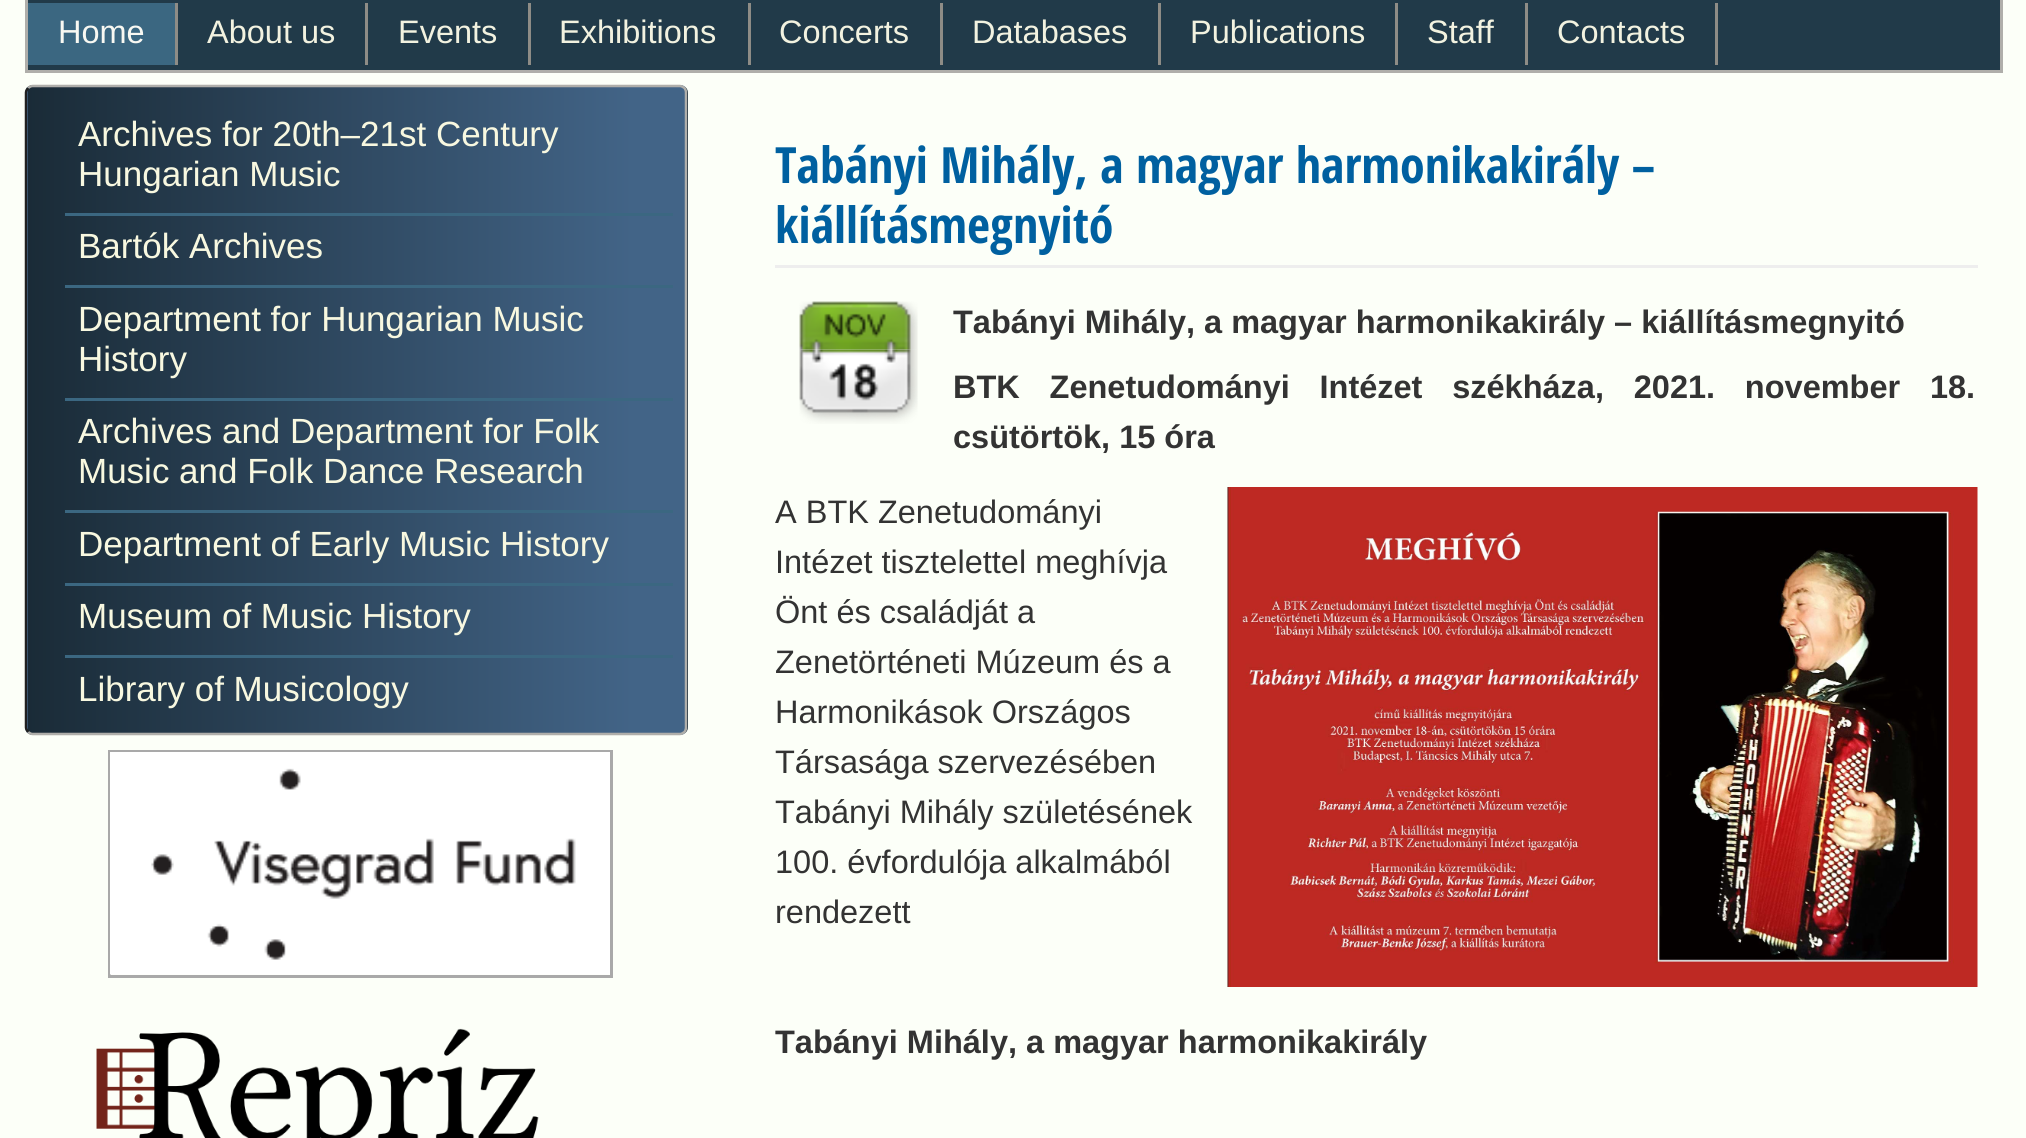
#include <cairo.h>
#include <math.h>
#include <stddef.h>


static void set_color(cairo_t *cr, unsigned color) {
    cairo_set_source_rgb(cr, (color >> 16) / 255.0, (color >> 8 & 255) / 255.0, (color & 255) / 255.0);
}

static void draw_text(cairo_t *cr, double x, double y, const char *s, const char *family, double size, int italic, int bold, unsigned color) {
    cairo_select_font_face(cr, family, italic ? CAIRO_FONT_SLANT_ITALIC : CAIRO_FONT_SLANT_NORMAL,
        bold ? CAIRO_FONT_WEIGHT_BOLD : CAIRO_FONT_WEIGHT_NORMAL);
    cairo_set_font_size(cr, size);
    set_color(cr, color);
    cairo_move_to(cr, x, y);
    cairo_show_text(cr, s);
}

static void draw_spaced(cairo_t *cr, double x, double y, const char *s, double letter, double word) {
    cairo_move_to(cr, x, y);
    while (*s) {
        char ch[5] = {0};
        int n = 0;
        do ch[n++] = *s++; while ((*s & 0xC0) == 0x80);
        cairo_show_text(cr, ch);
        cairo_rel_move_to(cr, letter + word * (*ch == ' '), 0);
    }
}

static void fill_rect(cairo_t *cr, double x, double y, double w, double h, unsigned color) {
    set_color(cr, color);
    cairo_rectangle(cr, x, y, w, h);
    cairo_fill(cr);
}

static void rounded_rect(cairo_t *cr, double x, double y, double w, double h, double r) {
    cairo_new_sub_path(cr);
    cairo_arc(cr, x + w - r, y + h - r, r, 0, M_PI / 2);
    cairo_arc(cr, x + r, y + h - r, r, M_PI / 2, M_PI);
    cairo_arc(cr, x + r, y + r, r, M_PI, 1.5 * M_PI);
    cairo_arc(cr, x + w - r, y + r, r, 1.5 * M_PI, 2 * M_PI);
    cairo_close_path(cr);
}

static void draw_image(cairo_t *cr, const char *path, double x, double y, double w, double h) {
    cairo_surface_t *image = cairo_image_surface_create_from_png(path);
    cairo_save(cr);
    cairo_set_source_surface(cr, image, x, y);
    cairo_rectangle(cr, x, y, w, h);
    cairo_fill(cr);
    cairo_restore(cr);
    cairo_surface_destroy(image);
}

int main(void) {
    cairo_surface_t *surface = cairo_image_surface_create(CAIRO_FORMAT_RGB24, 2026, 1138);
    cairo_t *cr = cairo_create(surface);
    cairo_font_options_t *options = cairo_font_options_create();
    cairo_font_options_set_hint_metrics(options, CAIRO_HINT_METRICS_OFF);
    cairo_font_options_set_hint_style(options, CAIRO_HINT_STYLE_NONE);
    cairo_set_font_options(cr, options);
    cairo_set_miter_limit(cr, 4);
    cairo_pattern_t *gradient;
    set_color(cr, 0xFCFFF8);
    cairo_paint(cr);
    set_color(cr, 0x213A49);
    cairo_rectangle(cr, 26.5, -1.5, 1975, 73);
    cairo_fill_preserve(cr);
    set_color(cr, 0xAFAEAA);
    cairo_set_line_width(cr, 3);
    cairo_stroke(cr);
    fill_rect(cr, 28, 3, 147, 62, 0x3B6781);
    fill_rect(cr, 175, 3, 3, 62, 0x8E8C86);
    draw_text(cr, 58, 43, "Home", "Liberation Sans", 32.5, 0, 0, 0xF8F8F2);
    fill_rect(cr, 365, 3, 3, 62, 0x8E8C86);
    draw_text(cr, 207, 43, "About us", "Liberation Sans", 32.5, 0, 0, 0xF2F2E0);
    fill_rect(cr, 528, 3, 3, 62, 0x8E8C86);
    draw_text(cr, 398, 43, "Events", "Liberation Sans", 32.5, 0, 0, 0xF2F2E0);
    fill_rect(cr, 748, 3, 3, 62, 0x8E8C86);
    draw_text(cr, 559, 43, "Exhibitions", "Liberation Sans", 32.5, 0, 0, 0xF2F2E0);
    fill_rect(cr, 940, 3, 3, 62, 0x8E8C86);
    draw_text(cr, 779, 43, "Concerts", "Liberation Sans", 32.5, 0, 0, 0xF2F2E0);
    fill_rect(cr, 1158, 3, 3, 62, 0x8E8C86);
    draw_text(cr, 972, 43, "Databases", "Liberation Sans", 32.5, 0, 0, 0xF2F2E0);
    fill_rect(cr, 1395, 3, 3, 62, 0x8E8C86);
    draw_text(cr, 1190, 43, "Publications", "Liberation Sans", 32.5, 0, 0, 0xF2F2E0);
    fill_rect(cr, 1525, 3, 3, 62, 0x8E8C86);
    draw_text(cr, 1427, 43, "Staff", "Liberation Sans", 32.5, 0, 0, 0xF2F2E0);
    fill_rect(cr, 1715, 3, 3, 62, 0x8E8C86);
    draw_text(cr, 1557, 43, "Contacts", "Liberation Sans", 32.5, 0, 0, 0xF2F2E0);
    cairo_save(cr);
    rounded_rect(cr, 25, 85, 663, 650, 8);
    cairo_clip(cr);
    gradient = cairo_pattern_create_linear(28, 410, -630, 410);
    cairo_pattern_add_color_stop_rgba(gradient, 0.08, 0.259, 0.392, 0.529, 1);
    cairo_pattern_add_color_stop_rgba(gradient, 1, 0.102, 0.169, 0.216, 1);
    cairo_set_source(cr, gradient);
    cairo_pattern_destroy(gradient);
    cairo_rectangle(cr, 25, 85, 3, 650);
    cairo_fill(cr);
    gradient = cairo_pattern_create_linear(685, 410, 28, 410);
    cairo_pattern_add_color_stop_rgba(gradient, 0.08, 0.259, 0.392, 0.529, 1);
    cairo_pattern_add_color_stop_rgba(gradient, 1, 0.102, 0.169, 0.216, 1);
    cairo_set_source(cr, gradient);
    cairo_pattern_destroy(gradient);
    cairo_rectangle(cr, 28, 85, 657, 650);
    cairo_fill(cr);
    gradient = cairo_pattern_create_linear(1343, 410, 685, 410);
    cairo_pattern_add_color_stop_rgba(gradient, 0.08, 0.259, 0.392, 0.529, 1);
    cairo_pattern_add_color_stop_rgba(gradient, 1, 0.102, 0.169, 0.216, 1);
    cairo_set_source(cr, gradient);
    cairo_pattern_destroy(gradient);
    cairo_rectangle(cr, 685, 85, 3, 650);
    cairo_fill(cr);
    cairo_restore(cr);
    cairo_new_path(cr);
    cairo_move_to(cr, 28, 88);
    cairo_curve_to(cr, 29.5, 87, 31, 86, 32.5, 86);
    cairo_line_to(cr, 680, 86);
    cairo_curve_to(cr, 681.5, 86, 683, 87, 684.5, 88);
    cairo_curve_to(cr, 685.5, 89.5, 686, 91, 686, 92.5);
    cairo_line_to(cr, 686, 727.5);
    cairo_curve_to(cr, 686, 729, 685.5, 730.5, 684.5, 732);
    cairo_curve_to(cr, 683, 733, 681.5, 734, 680, 734);
    cairo_line_to(cr, 32.5, 734);
    cairo_curve_to(cr, 31, 734, 29.5, 733, 28, 732);
    set_color(cr, 0xAFAEAA);
    cairo_set_line_width(cr, 2.5);
    cairo_stroke(cr);
    cairo_new_path(cr);
    cairo_move_to(cr, 28, 732);
    cairo_curve_to(cr, 27, 730.5, 26, 729, 26, 727.5);
    cairo_line_to(cr, 26, 92.5);
    cairo_curve_to(cr, 26, 91, 27, 89.5, 28, 88);
    set_color(cr, 0x202020);
    cairo_stroke(cr);
    draw_text(cr, 78, 146, "Archives for 20th–21st Century", "Liberation Sans", 35, 0, 0, 0xF8F8E0);
    draw_text(cr, 78, 186, "Hungarian Music", "Liberation Sans", 35, 0, 0, 0xF8F8E0);
    fill_rect(cr, 65, 213, 608, 3, 0x3B6781);
    draw_text(cr, 78, 258, "Bartók Archives", "Liberation Sans", 35, 0, 0, 0xF8F8E0);
    fill_rect(cr, 65, 285, 608, 3, 0x3B6781);
    draw_text(cr, 78, 331, "Department for Hungarian Music", "Liberation Sans", 35, 0, 0, 0xF8F8E0);
    draw_text(cr, 78, 371, "History", "Liberation Sans", 35, 0, 0, 0xF8F8E0);
    fill_rect(cr, 65, 398, 608, 3, 0x3B6781);
    draw_text(cr, 78, 443, "Archives and Department for Folk", "Liberation Sans", 35, 0, 0, 0xF8F8E0);
    draw_text(cr, 78, 483, "Music and Folk Dance Research", "Liberation Sans", 35, 0, 0, 0xF8F8E0);
    fill_rect(cr, 65, 510, 608, 3, 0x3B6781);
    draw_text(cr, 78, 556, "Department of Early Music History", "Liberation Sans", 35, 0, 0, 0xF8F8E0);
    fill_rect(cr, 65, 583, 608, 3, 0x3B6781);
    draw_text(cr, 78, 628, "Museum of Music History", "Liberation Sans", 35, 0, 0, 0xF8F8E0);
    fill_rect(cr, 65, 655, 608, 3, 0x3B6781);
    draw_text(cr, 78, 701, "Library of Musicology", "Liberation Sans", 35, 0, 0, 0xF8F8E0);
    cairo_rectangle(cr, 109.5, 751.5, 502, 225);
    set_color(cr, 0xA9A9A9);
    cairo_set_line_width(cr, 3);
    cairo_stroke(cr);
    draw_image(cr, "assets/img1.png", 110, 752, 500, 223);
    draw_image(cr, "assets/img2.png", 96, 1028, 443, 110);
    fill_rect(cr, 775, 265, 1203, 3, 0xEEEEEE);
    draw_text(cr, 775, 183, "Tabányi Mihály, a magyar harmonikakirály –", "Open Sans Condensed", 50, 0, 1, 0x0060A0);
    draw_text(cr, 775, 243, "kiállításmegnyitó", "Open Sans Condensed", 50, 0, 1, 0x0060A0);
    draw_image(cr, "assets/img3.png", 799, 301, 119, 49);
    draw_image(cr, "assets/img4.png", 799, 349, 119, 75);
    draw_text(cr, 953, 333, "Tabányi Mihály, a magyar harmonikakirály – kiállításmegnyitó", "Liberation Sans", 32.5, 0, 1, 0x333333);
    draw_spaced(cr, 953, 398, "BTK Zenetudományi Intézet székháza, 2021. november 18.", 0, 20.75);
    draw_text(cr, 953, 448, "csütörtök, 15 óra", "Liberation Sans", 32.5, 0, 1, 0x333333);
    draw_text(cr, 775, 523, "A BTK Zenetudományi", "Liberation Sans", 32.5, 0, 0, 0x333333);
    draw_image(cr, "assets/img5.png", 1227, 487, 751, 500);
    draw_text(cr, 775, 573, "Intézet tisztelettel meghívja", "Liberation Sans", 32.5, 0, 0, 0x333333);
    draw_text(cr, 775, 623, "Önt és családját a", "Liberation Sans", 32.5, 0, 0, 0x333333);
    draw_text(cr, 775, 673, "Zenetörténeti Múzeum és a", "Liberation Sans", 32.5, 0, 0, 0x333333);
    draw_text(cr, 775, 723, "Harmonikások Országos", "Liberation Sans", 32.5, 0, 0, 0x333333);
    draw_text(cr, 775, 773, "Társasága szervezésében", "Liberation Sans", 32.5, 0, 0, 0x333333);
    draw_text(cr, 775, 823, "Tabányi Mihály születésének", "Liberation Sans", 32.5, 0, 0, 0x333333);
    draw_text(cr, 775, 873, "100. évfordulója alkalmából", "Liberation Sans", 32.5, 0, 0, 0x333333);
    draw_text(cr, 775, 923, "rendezett", "Liberation Sans", 32.5, 0, 0, 0x333333);
    draw_text(cr, 775, 1053, "Tabányi Mihály, a magyar harmonikakirály", "Liberation Sans", 32.5, 0, 1, 0x333333);
    cairo_surface_write_to_png(surface, "output.png");
    cairo_font_options_destroy(options);
    cairo_destroy(cr);
    cairo_surface_destroy(surface);
    return 0;
}
